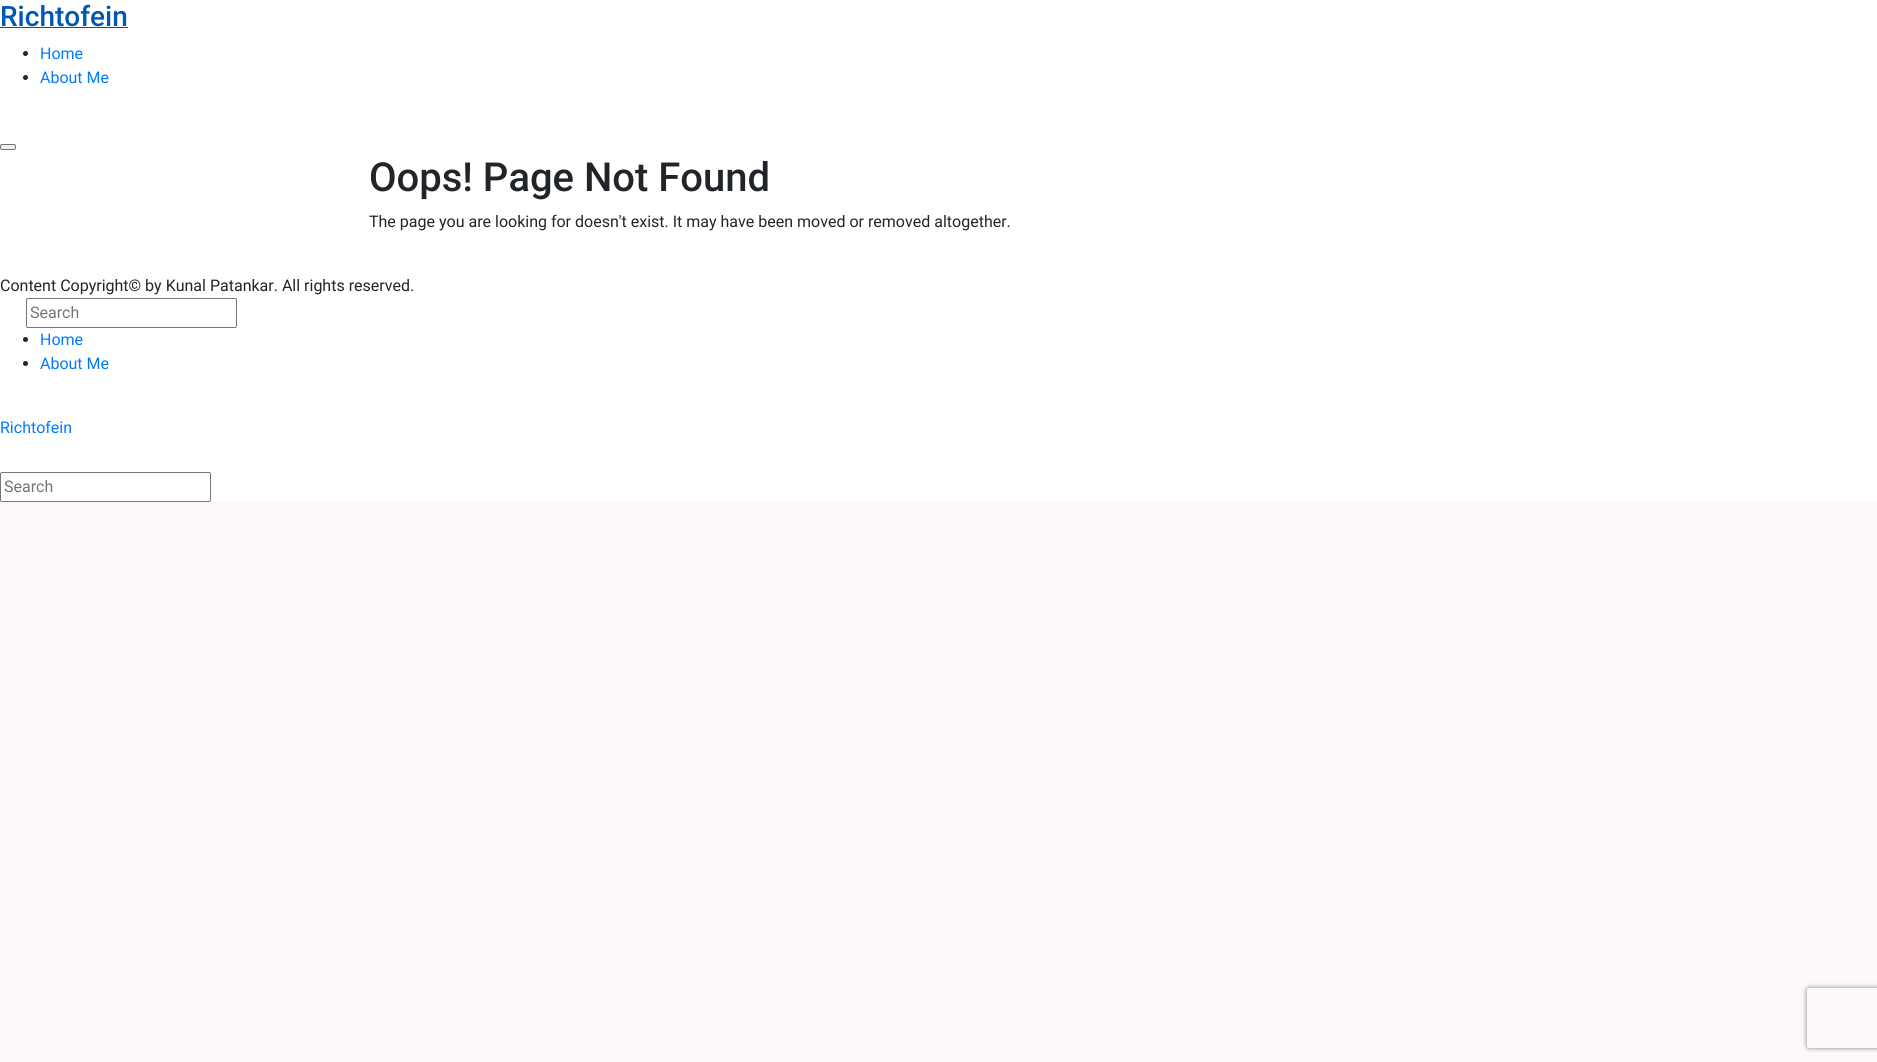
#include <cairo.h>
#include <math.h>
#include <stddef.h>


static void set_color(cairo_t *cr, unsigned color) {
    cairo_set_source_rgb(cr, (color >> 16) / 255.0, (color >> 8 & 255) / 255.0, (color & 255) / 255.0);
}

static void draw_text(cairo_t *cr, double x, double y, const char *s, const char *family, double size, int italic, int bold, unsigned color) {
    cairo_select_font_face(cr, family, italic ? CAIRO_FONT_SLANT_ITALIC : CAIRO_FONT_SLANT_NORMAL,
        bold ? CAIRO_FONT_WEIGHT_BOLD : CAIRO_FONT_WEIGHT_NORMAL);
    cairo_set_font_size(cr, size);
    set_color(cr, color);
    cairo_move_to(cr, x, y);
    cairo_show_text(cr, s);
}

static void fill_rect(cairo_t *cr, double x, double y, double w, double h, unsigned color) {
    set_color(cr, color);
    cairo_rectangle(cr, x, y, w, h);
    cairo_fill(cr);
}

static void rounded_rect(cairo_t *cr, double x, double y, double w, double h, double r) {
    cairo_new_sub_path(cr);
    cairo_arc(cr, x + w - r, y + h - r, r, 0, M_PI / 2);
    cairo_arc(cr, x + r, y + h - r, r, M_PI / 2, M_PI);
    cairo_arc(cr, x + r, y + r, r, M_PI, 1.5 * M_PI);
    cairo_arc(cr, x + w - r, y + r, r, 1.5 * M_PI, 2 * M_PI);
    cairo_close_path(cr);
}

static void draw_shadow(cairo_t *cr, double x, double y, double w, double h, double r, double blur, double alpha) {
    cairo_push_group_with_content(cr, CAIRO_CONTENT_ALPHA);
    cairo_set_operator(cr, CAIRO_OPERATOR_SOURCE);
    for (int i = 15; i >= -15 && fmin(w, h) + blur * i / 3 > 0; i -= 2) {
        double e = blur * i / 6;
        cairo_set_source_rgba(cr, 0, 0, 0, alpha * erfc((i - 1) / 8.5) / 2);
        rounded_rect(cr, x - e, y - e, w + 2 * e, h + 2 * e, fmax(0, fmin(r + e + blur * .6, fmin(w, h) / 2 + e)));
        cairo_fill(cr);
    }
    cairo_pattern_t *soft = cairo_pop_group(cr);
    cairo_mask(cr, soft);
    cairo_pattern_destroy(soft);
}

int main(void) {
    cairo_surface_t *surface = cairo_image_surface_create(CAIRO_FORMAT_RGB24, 1877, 1062);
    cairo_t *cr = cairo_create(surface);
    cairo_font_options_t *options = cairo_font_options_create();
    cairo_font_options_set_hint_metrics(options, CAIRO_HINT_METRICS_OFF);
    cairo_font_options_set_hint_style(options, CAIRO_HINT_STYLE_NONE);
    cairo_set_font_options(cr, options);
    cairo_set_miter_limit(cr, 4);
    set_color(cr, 0xFDF9F8);
    cairo_paint(cr);
    fill_rect(cr, 0, 0, 1877, 502, 0xFFFFFF);
    draw_text(cr, 0, 26, "Richtofein", "Roboto Medium", 28, 0, 0, 0x0056B3);
    fill_rect(cr, 0, 27, 128, 1, 0x0056B3);
    set_color(cr, 0x212529);
    cairo_new_path(cr);
    cairo_arc(cr, 25.5, 53.5, 2.5, 0, 2 * M_PI);
    cairo_fill(cr);
    draw_text(cr, 40, 59, "Home", "Roboto", 16, 0, 0, 0x007BFF);
    set_color(cr, 0x212529);
    cairo_new_path(cr);
    cairo_arc(cr, 25.5, 77.5, 2.5, 0, 2 * M_PI);
    cairo_fill(cr);
    draw_text(cr, 40, 83, "About Me", "Roboto", 16, 0, 0, 0x007BFF);
    set_color(cr, 0xEFEFEF);
    rounded_rect(cr, 0.5, 144.5, 15, 5, 1.5);
    cairo_fill_preserve(cr);
    set_color(cr, 0x767676);
    cairo_set_line_width(cr, 1);
    cairo_stroke(cr);
    draw_text(cr, 369, 191, "Oops! Page Not Found", "Roboto Medium", 40, 0, 0, 0x212529);
    draw_text(cr, 369, 227, "The page you are looking for doesn't exist. It may have been moved or removed altogether.", "Roboto", 16, 0, 0, 0x212529);
    draw_text(cr, 0, 291, "Content Copyright© by Kunal Patankar. All rights reserved.", "Roboto", 16, 0, 0, 0x212529);
    rounded_rect(cr, 26.5, 298.5, 210, 29, 1.5);
    set_color(cr, 0x767676);
    cairo_stroke(cr);
    draw_text(cr, 30, 318, "Search", "Roboto", 16, 0, 0, 0x757575);
    set_color(cr, 0x212529);
    cairo_new_path(cr);
    cairo_arc(cr, 25.5, 339.5, 2.5, 0, 2 * M_PI);
    cairo_fill(cr);
    draw_text(cr, 40, 345, "Home", "Roboto", 16, 0, 0, 0x007BFF);
    set_color(cr, 0x212529);
    cairo_new_path(cr);
    cairo_arc(cr, 25.5, 363.5, 2.5, 0, 2 * M_PI);
    cairo_fill(cr);
    draw_text(cr, 40, 369, "About Me", "Roboto", 16, 0, 0, 0x007BFF);
    draw_text(cr, 0, 433, "Richtofein", "Roboto", 16, 0, 0, 0x007BFF);
    rounded_rect(cr, 0.5, 472.5, 210, 29, 1.5);
    set_color(cr, 0x767676);
    cairo_stroke(cr);
    draw_text(cr, 4, 492, "Search", "Roboto", 16, 0, 0, 0x757575);
    cairo_save(cr);
    cairo_set_fill_rule(cr, CAIRO_FILL_RULE_EVEN_ODD);
    cairo_new_path(cr);
    cairo_move_to(cr, 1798, 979);
    cairo_line_to(cr, 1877, 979);
    cairo_line_to(cr, 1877, 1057);
    cairo_line_to(cr, 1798, 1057);
    cairo_close_path(cr);
    cairo_move_to(cr, 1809, 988);
    cairo_line_to(cr, 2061, 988);
    cairo_curve_to(cr, 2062, 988, 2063, 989, 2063, 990);
    cairo_line_to(cr, 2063, 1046);
    cairo_curve_to(cr, 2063, 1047, 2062, 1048, 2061, 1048);
    cairo_line_to(cr, 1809, 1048);
    cairo_curve_to(cr, 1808, 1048, 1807, 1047, 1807, 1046);
    cairo_line_to(cr, 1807, 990);
    cairo_curve_to(cr, 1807, 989, 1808, 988, 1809, 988);
    cairo_close_path(cr);
    cairo_clip(cr);
    set_color(cr, 0x808080);
    draw_shadow(cr, 1807, 988, 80, 60, 2, 2.5, 1);
    cairo_restore(cr);
    cairo_surface_write_to_png(surface, "output.png");
    cairo_font_options_destroy(options);
    cairo_destroy(cr);
    cairo_surface_destroy(surface);
    return 0;
}
